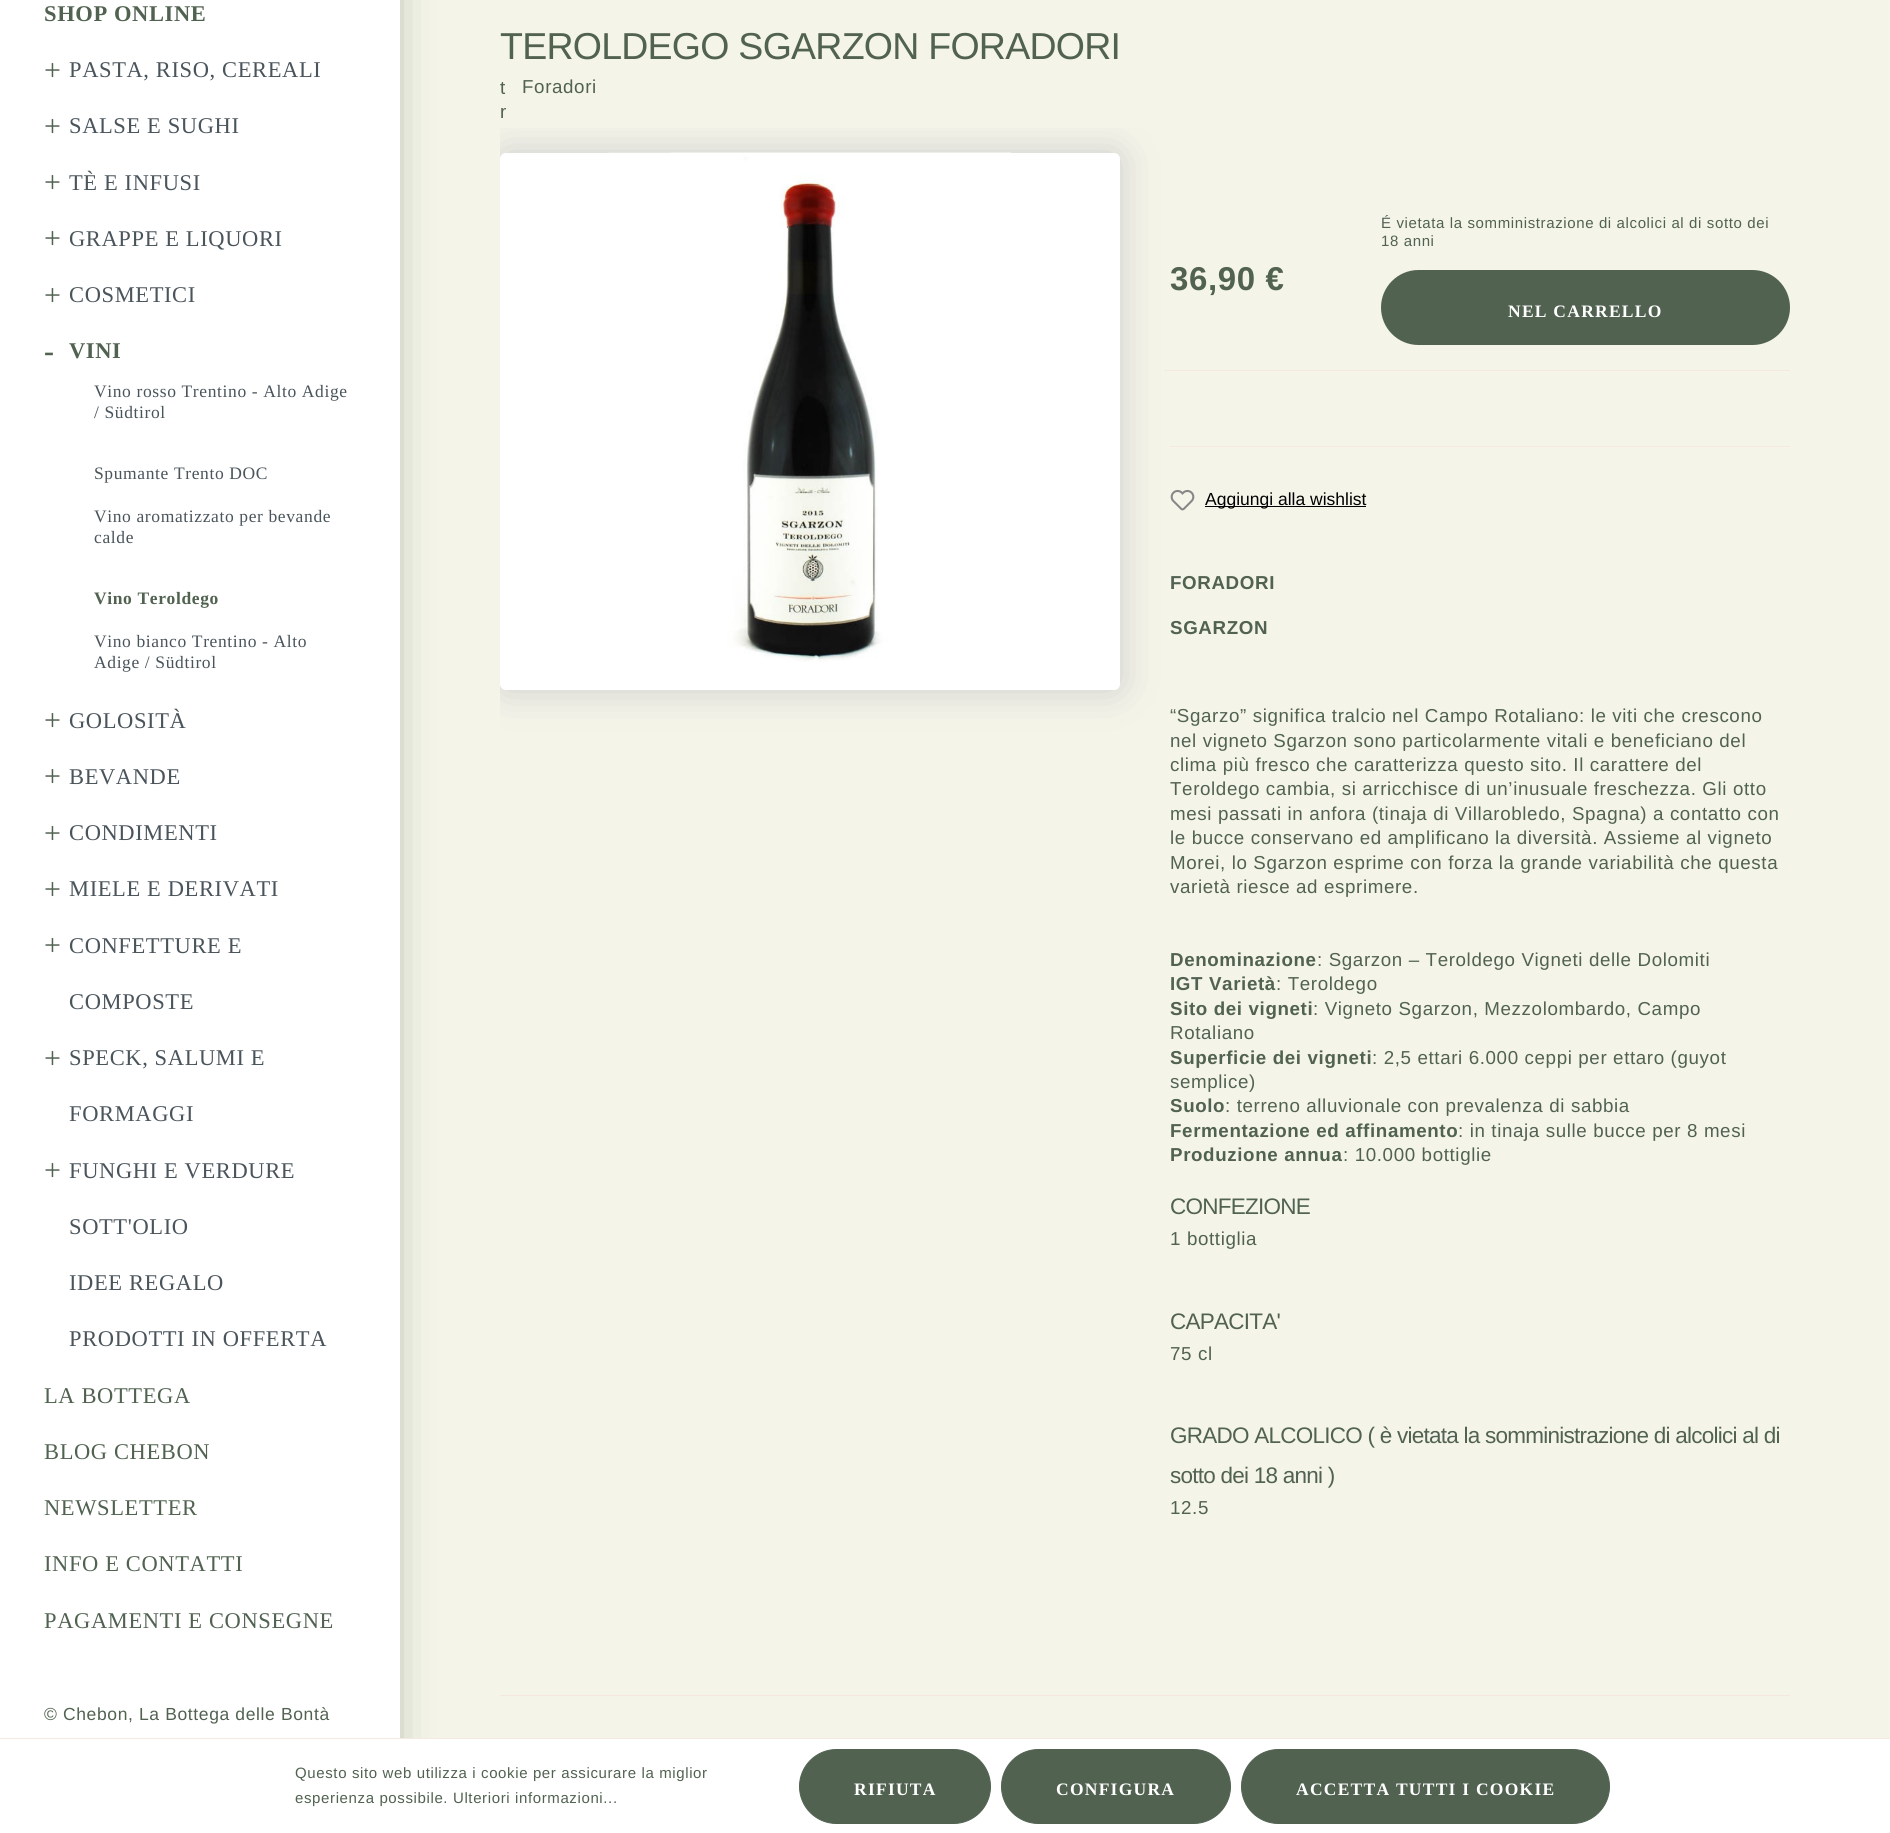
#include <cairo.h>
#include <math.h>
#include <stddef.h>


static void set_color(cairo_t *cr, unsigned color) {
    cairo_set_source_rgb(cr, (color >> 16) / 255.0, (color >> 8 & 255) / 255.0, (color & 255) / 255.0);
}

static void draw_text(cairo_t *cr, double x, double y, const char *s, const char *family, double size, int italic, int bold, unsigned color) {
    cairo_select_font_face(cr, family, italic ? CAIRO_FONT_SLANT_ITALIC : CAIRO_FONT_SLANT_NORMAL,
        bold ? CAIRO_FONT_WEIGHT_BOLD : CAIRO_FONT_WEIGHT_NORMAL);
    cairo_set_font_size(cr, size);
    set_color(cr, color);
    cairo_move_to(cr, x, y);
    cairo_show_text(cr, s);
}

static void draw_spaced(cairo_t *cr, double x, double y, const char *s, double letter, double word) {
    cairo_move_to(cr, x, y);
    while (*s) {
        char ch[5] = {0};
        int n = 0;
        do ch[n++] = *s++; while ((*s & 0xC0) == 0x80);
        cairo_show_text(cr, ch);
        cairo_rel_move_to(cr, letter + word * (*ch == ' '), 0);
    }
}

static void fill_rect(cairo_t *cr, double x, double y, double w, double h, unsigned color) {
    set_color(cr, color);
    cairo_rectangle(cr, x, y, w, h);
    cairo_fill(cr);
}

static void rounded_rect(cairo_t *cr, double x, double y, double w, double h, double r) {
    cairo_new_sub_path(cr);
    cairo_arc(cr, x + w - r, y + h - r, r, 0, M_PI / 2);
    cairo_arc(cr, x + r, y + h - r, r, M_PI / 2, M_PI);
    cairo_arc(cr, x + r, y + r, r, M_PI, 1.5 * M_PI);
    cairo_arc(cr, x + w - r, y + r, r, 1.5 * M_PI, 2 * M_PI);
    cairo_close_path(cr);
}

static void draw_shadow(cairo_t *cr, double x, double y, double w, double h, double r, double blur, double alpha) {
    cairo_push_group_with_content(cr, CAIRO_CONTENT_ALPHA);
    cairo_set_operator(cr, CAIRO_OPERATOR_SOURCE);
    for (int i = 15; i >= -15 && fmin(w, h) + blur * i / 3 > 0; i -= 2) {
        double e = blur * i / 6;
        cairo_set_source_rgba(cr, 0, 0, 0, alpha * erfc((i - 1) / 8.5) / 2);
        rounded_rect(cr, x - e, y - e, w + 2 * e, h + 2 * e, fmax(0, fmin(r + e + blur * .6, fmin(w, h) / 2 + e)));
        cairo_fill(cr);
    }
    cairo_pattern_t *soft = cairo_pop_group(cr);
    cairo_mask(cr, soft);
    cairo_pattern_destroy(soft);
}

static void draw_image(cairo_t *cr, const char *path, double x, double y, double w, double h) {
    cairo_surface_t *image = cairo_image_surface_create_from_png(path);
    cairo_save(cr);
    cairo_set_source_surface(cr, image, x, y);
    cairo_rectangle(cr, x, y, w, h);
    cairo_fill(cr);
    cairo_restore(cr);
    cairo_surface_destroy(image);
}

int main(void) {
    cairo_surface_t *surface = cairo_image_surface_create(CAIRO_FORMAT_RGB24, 1890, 1833);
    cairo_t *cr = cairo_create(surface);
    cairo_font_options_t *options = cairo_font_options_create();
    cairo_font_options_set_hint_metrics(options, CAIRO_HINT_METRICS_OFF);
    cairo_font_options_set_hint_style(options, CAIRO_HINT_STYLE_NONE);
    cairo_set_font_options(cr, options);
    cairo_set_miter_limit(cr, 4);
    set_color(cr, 0xF4F4E9);
    cairo_paint(cr);
    set_color(cr, 0x516251);
    draw_shadow(cr, -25, -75, 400, 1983, 0, 25, 1);
    fill_rect(cr, 0, 0, 400, 1738, 0xFFFFFF);
    cairo_select_font_face(cr, "Liberation Serif", CAIRO_FONT_SLANT_NORMAL, CAIRO_FONT_WEIGHT_BOLD);
    cairo_set_font_size(cr, 22.5);
    set_color(cr, 0x516251);
    draw_spaced(cr, 44, 21, "SHOP ONLINE", 0.62, 0);
    cairo_select_font_face(cr, "Liberation Serif", CAIRO_FONT_SLANT_NORMAL, CAIRO_FONT_WEIGHT_NORMAL);
    cairo_set_font_size(cr, 30);
    draw_spaced(cr, 44, 80, "+", 0.62, 0);
    cairo_set_font_size(cr, 22.5);
    set_color(cr, 0x4A545B);
    draw_spaced(cr, 69, 77, "PASTA, RISO, CEREALI", 0.62, 0);
    cairo_set_font_size(cr, 30);
    set_color(cr, 0x516251);
    draw_spaced(cr, 44, 136, "+", 0.62, 0);
    cairo_set_font_size(cr, 22.5);
    set_color(cr, 0x4A545B);
    draw_spaced(cr, 69, 133, "SALSE E SUGHI", 0.62, 0);
    cairo_set_font_size(cr, 30);
    set_color(cr, 0x516251);
    draw_spaced(cr, 44, 192, "+", 0.62, 0);
    cairo_set_font_size(cr, 22.5);
    set_color(cr, 0x4A545B);
    draw_spaced(cr, 69, 190, "TÈ E INFUSI", 0.62, 0);
    cairo_set_font_size(cr, 30);
    set_color(cr, 0x516251);
    draw_spaced(cr, 44, 248, "+", 0.62, 0);
    cairo_set_font_size(cr, 22.5);
    set_color(cr, 0x4A545B);
    draw_spaced(cr, 69, 246, "GRAPPE E LIQUORI", 0.62, 0);
    cairo_set_font_size(cr, 30);
    set_color(cr, 0x516251);
    draw_spaced(cr, 44, 305, "+", 0.62, 0);
    cairo_set_font_size(cr, 22.5);
    set_color(cr, 0x4A545B);
    draw_spaced(cr, 69, 302, "COSMETICI", 0.62, 0);
    cairo_select_font_face(cr, "Liberation Serif", CAIRO_FONT_SLANT_NORMAL, CAIRO_FONT_WEIGHT_BOLD);
    cairo_set_font_size(cr, 30);
    set_color(cr, 0x516251);
    draw_spaced(cr, 44, 361, "-", 0.62, 0);
    cairo_set_font_size(cr, 22.5);
    draw_spaced(cr, 69, 358, "VINI", 0.62, 0);
    cairo_select_font_face(cr, "Liberation Serif", CAIRO_FONT_SLANT_NORMAL, CAIRO_FONT_WEIGHT_NORMAL);
    cairo_set_font_size(cr, 17.5);
    set_color(cr, 0x4A545B);
    draw_spaced(cr, 94, 397, "Vino rosso Trentino - Alto Adige", 0.62, 0);
    draw_spaced(cr, 94, 418, "/ Südtirol", 0.62, 0);
    draw_spaced(cr, 94, 479, "Spumante Trento DOC", 0.62, 0);
    draw_spaced(cr, 94, 522, "Vino aromatizzato per bevande", 0.62, 0);
    draw_spaced(cr, 94, 543, "calde", 0.62, 0);
    cairo_select_font_face(cr, "Liberation Serif", CAIRO_FONT_SLANT_NORMAL, CAIRO_FONT_WEIGHT_BOLD);
    set_color(cr, 0x516251);
    draw_spaced(cr, 94, 604, "Vino Teroldego", 0.62, 0);
    cairo_select_font_face(cr, "Liberation Serif", CAIRO_FONT_SLANT_NORMAL, CAIRO_FONT_WEIGHT_NORMAL);
    set_color(cr, 0x4A545B);
    draw_spaced(cr, 94, 647, "Vino bianco Trentino - Alto", 0.62, 0);
    draw_spaced(cr, 94, 668, "Adige / Südtirol", 0.62, 0);
    cairo_set_font_size(cr, 30);
    set_color(cr, 0x516251);
    draw_spaced(cr, 44, 730, "+", 0.62, 0);
    cairo_set_font_size(cr, 22.5);
    set_color(cr, 0x4A545B);
    draw_spaced(cr, 69, 728, "GOLOSITÀ", 0.62, 0);
    cairo_set_font_size(cr, 30);
    set_color(cr, 0x516251);
    draw_spaced(cr, 44, 786, "+", 0.62, 0);
    cairo_set_font_size(cr, 22.5);
    set_color(cr, 0x4A545B);
    draw_spaced(cr, 69, 784, "BEVANDE", 0.62, 0);
    cairo_set_font_size(cr, 30);
    set_color(cr, 0x516251);
    draw_spaced(cr, 44, 843, "+", 0.62, 0);
    cairo_set_font_size(cr, 22.5);
    set_color(cr, 0x4A545B);
    draw_spaced(cr, 69, 840, "CONDIMENTI", 0.62, 0);
    cairo_set_font_size(cr, 30);
    set_color(cr, 0x516251);
    draw_spaced(cr, 44, 899, "+", 0.62, 0);
    cairo_set_font_size(cr, 22.5);
    set_color(cr, 0x4A545B);
    draw_spaced(cr, 69, 896, "MIELE E DERIVATI", 0.62, 0);
    cairo_set_font_size(cr, 30);
    set_color(cr, 0x516251);
    draw_spaced(cr, 44, 955, "+", 0.62, 0);
    cairo_set_font_size(cr, 22.5);
    set_color(cr, 0x4A545B);
    draw_spaced(cr, 69, 953, "CONFETTURE E", 0.62, 0);
    draw_spaced(cr, 69, 1009, "COMPOSTE", 0.62, 0);
    cairo_set_font_size(cr, 30);
    set_color(cr, 0x516251);
    draw_spaced(cr, 44, 1068, "+", 0.62, 0);
    cairo_set_font_size(cr, 22.5);
    set_color(cr, 0x4A545B);
    draw_spaced(cr, 69, 1065, "SPECK, SALUMI E", 0.62, 0);
    draw_spaced(cr, 69, 1121, "FORMAGGI", 0.62, 0);
    cairo_set_font_size(cr, 30);
    set_color(cr, 0x516251);
    draw_spaced(cr, 44, 1180, "+", 0.62, 0);
    cairo_set_font_size(cr, 22.5);
    set_color(cr, 0x4A545B);
    draw_spaced(cr, 69, 1178, "FUNGHI E VERDURE", 0.62, 0);
    draw_spaced(cr, 69, 1234, "SOTT'OLIO", 0.62, 0);
    draw_spaced(cr, 69, 1290, "IDEE REGALO", 0.62, 0);
    draw_spaced(cr, 69, 1346, "PRODOTTI IN OFFERTA", 0.62, 0);
    set_color(cr, 0x516251);
    draw_spaced(cr, 44, 1403, "LA BOTTEGA", 0.62, 0);
    draw_spaced(cr, 44, 1459, "BLOG CHEBON", 0.62, 0);
    draw_spaced(cr, 44, 1515, "NEWSLETTER", 0.62, 0);
    draw_spaced(cr, 44, 1571, "INFO E CONTATTI", 0.62, 0);
    draw_spaced(cr, 44, 1628, "PAGAMENTI E CONSEGNE", 0.62, 0);
    cairo_select_font_face(cr, "Liberation Sans", CAIRO_FONT_SLANT_NORMAL, CAIRO_FONT_WEIGHT_NORMAL);
    cairo_set_font_size(cr, 17.5);
    draw_spaced(cr, 44, 1720, "© Chebon, La Bottega delle Bontà", 0.62, 0);
    cairo_set_font_size(cr, 37.5);
    draw_spaced(cr, 500, 59, "TEROLDEGO SGARZON FORADORI", -0.75, 0);
    draw_image(cr, "assets/img1.png", 500, 82, 6, 36);
    cairo_set_font_size(cr, 18.75);
    draw_spaced(cr, 522, 93, "Foradori", 0.62, 0);
    cairo_save(cr);
    cairo_rectangle(cr, 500, 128, 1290, 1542);
    cairo_clip(cr);
    set_color(cr, 0xCDCDCD);
    draw_shadow(cr, 500, 153, 620, 537, 6, 19, 1);
    cairo_restore(cr);
    set_color(cr, 0xFFFFFF);
    rounded_rect(cr, 500, 153, 620, 537, 6);
    cairo_fill(cr);
    draw_image(cr, "assets/img2.png", 609, 152, 402, 510);
    fill_rect(cr, 1170, 446, 620, 1, 0xF5E8DE);
    fill_rect(cr, 1164, 370, 626, 1, 0xF5E8DE);
    cairo_select_font_face(cr, "Liberation Sans", CAIRO_FONT_SLANT_NORMAL, CAIRO_FONT_WEIGHT_BOLD);
    cairo_set_font_size(cr, 33);
    set_color(cr, 0x516251);
    draw_spaced(cr, 1170, 290, "36,90 €", 0.62, 0);
    cairo_select_font_face(cr, "Liberation Sans", CAIRO_FONT_SLANT_NORMAL, CAIRO_FONT_WEIGHT_NORMAL);
    cairo_set_font_size(cr, 15);
    draw_spaced(cr, 1381, 228, "É vietata la somministrazione di alcolici al di sotto dei", 0.62, 0);
    draw_spaced(cr, 1381, 246, "18 anni", 0.62, 0);
    rounded_rect(cr, 1381, 270, 409, 75, 37.5);
    cairo_fill(cr);
    cairo_select_font_face(cr, "Liberation Serif", CAIRO_FONT_SLANT_NORMAL, CAIRO_FONT_WEIGHT_BOLD);
    cairo_set_font_size(cr, 17.5);
    set_color(cr, 0xFFFFFF);
    draw_spaced(cr, 1508, 317, "NEL CARRELLO", 1.25, 0);
    draw_image(cr, "assets/img3.png", 1170, 489, 25, 22);
    fill_rect(cr, 1205, 506, 161, 1, 0x000000);
    draw_text(cr, 1205, 505, "Aggiungi alla wishlist", "Liberation Sans", 17.5, 0, 0, 0x000000);
    cairo_select_font_face(cr, "Liberation Sans", CAIRO_FONT_SLANT_NORMAL, CAIRO_FONT_WEIGHT_BOLD);
    cairo_set_font_size(cr, 18.75);
    set_color(cr, 0x516251);
    draw_spaced(cr, 1170, 589, "FORADORI", 0.62, 0);
    draw_spaced(cr, 1170, 634, "SGARZON", 0.62, 0);
    cairo_select_font_face(cr, "Liberation Sans", CAIRO_FONT_SLANT_NORMAL, CAIRO_FONT_WEIGHT_NORMAL);
    draw_spaced(cr, 1170, 722, "“Sgarzo” significa tralcio nel Campo Rotaliano: le viti che crescono", 0.62, 0);
    draw_spaced(cr, 1170, 747, "nel vigneto Sgarzon sono particolarmente vitali e beneficiano del", 0.62, 0);
    draw_spaced(cr, 1170, 771, "clima più fresco che caratterizza questo sito. Il carattere del", 0.62, 0);
    draw_spaced(cr, 1170, 795, "Teroldego cambia, si arricchisce di un’inusuale freschezza. Gli otto", 0.62, 0);
    draw_spaced(cr, 1170, 820, "mesi passati in anfora (tinaja di Villarobledo, Spagna) a contatto con", 0.62, 0);
    draw_spaced(cr, 1170, 844, "le bucce conservano ed amplificano la diversità. Assieme al vigneto", 0.62, 0);
    draw_spaced(cr, 1170, 869, "Morei, lo Sgarzon esprime con forza la grande variabilità che questa", 0.62, 0);
    draw_spaced(cr, 1170, 893, "varietà riesce ad esprimere.", 0.62, 0);
    cairo_select_font_face(cr, "Liberation Sans", CAIRO_FONT_SLANT_NORMAL, CAIRO_FONT_WEIGHT_BOLD);
    draw_spaced(cr, 1170, 966, "Denominazione", 0.62, 0);
    cairo_select_font_face(cr, "Liberation Sans", CAIRO_FONT_SLANT_NORMAL, CAIRO_FONT_WEIGHT_NORMAL);
    draw_spaced(cr, 1317, 966, ": Sgarzon – Teroldego Vigneti delle Dolomiti", 0.62, 0);
    cairo_select_font_face(cr, "Liberation Sans", CAIRO_FONT_SLANT_NORMAL, CAIRO_FONT_WEIGHT_BOLD);
    draw_spaced(cr, 1170, 990, "IGT Varietà", 0.62, 0);
    cairo_select_font_face(cr, "Liberation Sans", CAIRO_FONT_SLANT_NORMAL, CAIRO_FONT_WEIGHT_NORMAL);
    draw_spaced(cr, 1276, 990, ": Teroldego", 0.62, 0);
    cairo_select_font_face(cr, "Liberation Sans", CAIRO_FONT_SLANT_NORMAL, CAIRO_FONT_WEIGHT_BOLD);
    draw_spaced(cr, 1170, 1015, "Sito dei vigneti", 0.62, 0);
    cairo_select_font_face(cr, "Liberation Sans", CAIRO_FONT_SLANT_NORMAL, CAIRO_FONT_WEIGHT_NORMAL);
    draw_spaced(cr, 1313, 1015, ": Vigneto Sgarzon, Mezzolombardo, Campo", 0.62, 0);
    draw_spaced(cr, 1170, 1039, "Rotaliano", 0.62, 0);
    cairo_select_font_face(cr, "Liberation Sans", CAIRO_FONT_SLANT_NORMAL, CAIRO_FONT_WEIGHT_BOLD);
    draw_spaced(cr, 1170, 1064, "Superficie dei vigneti", 0.62, 0);
    cairo_select_font_face(cr, "Liberation Sans", CAIRO_FONT_SLANT_NORMAL, CAIRO_FONT_WEIGHT_NORMAL);
    draw_spaced(cr, 1372, 1064, ": 2,5 ettari 6.000 ceppi per ettaro (guyot", 0.62, 0);
    draw_spaced(cr, 1170, 1088, "semplice)", 0.62, 0);
    cairo_select_font_face(cr, "Liberation Sans", CAIRO_FONT_SLANT_NORMAL, CAIRO_FONT_WEIGHT_BOLD);
    draw_spaced(cr, 1170, 1112, "Suolo", 0.62, 0);
    cairo_select_font_face(cr, "Liberation Sans", CAIRO_FONT_SLANT_NORMAL, CAIRO_FONT_WEIGHT_NORMAL);
    draw_spaced(cr, 1225, 1112, ": terreno alluvionale con prevalenza di sabbia", 0.62, 0);
    cairo_select_font_face(cr, "Liberation Sans", CAIRO_FONT_SLANT_NORMAL, CAIRO_FONT_WEIGHT_BOLD);
    draw_spaced(cr, 1170, 1137, "Fermentazione ed affinamento", 0.62, 0);
    cairo_select_font_face(cr, "Liberation Sans", CAIRO_FONT_SLANT_NORMAL, CAIRO_FONT_WEIGHT_NORMAL);
    draw_spaced(cr, 1458, 1137, ": in tinaja sulle bucce per 8 mesi", 0.62, 0);
    cairo_select_font_face(cr, "Liberation Sans", CAIRO_FONT_SLANT_NORMAL, CAIRO_FONT_WEIGHT_BOLD);
    draw_spaced(cr, 1170, 1161, "Produzione annua", 0.62, 0);
    cairo_select_font_face(cr, "Liberation Sans", CAIRO_FONT_SLANT_NORMAL, CAIRO_FONT_WEIGHT_NORMAL);
    draw_spaced(cr, 1343, 1161, ": 10.000 bottiglie", 0.62, 0);
    cairo_set_font_size(cr, 22.5);
    draw_spaced(cr, 1170, 1214, "CONFEZIONE", -0.75, 0);
    cairo_set_font_size(cr, 18.75);
    draw_spaced(cr, 1170, 1245, "1 bottiglia", 0.62, 0);
    cairo_set_font_size(cr, 22.5);
    draw_spaced(cr, 1170, 1329, "CAPACITA'", -0.75, 0);
    cairo_set_font_size(cr, 18.75);
    draw_spaced(cr, 1170, 1360, "75 cl", 0.62, 0);
    cairo_set_font_size(cr, 22.5);
    draw_spaced(cr, 1170, 1443, "GRADO ALCOLICO ( è vietata la somministrazione di alcolici al di", -0.75, 0);
    draw_spaced(cr, 1170, 1483, "sotto dei 18 anni )", -0.75, 0);
    cairo_set_font_size(cr, 18.75);
    draw_spaced(cr, 1170, 1514, "12.5", 0.62, 0);
    fill_rect(cr, 500, 1695, 1290, 1, 0xF5E8DE);
    fill_rect(cr, 0, 1739, 1890, 94, 0xFFFFFF);
    fill_rect(cr, 0, 1738, 1890, 1, 0xF5E8DE);
    cairo_set_font_size(cr, 15);
    set_color(cr, 0x516251);
    draw_spaced(cr, 295, 1778, "Questo sito web utilizza i cookie per assicurare la miglior", 0.62, 0);
    draw_spaced(cr, 295, 1803, "esperienza possibile. Ulteriori informazioni...", 0.62, 0);
    rounded_rect(cr, 799.5, 1749.5, 191, 74, 37);
    cairo_fill_preserve(cr);
    cairo_set_line_width(cr, 1);
    cairo_stroke(cr);
    cairo_select_font_face(cr, "Liberation Serif", CAIRO_FONT_SLANT_NORMAL, CAIRO_FONT_WEIGHT_BOLD);
    cairo_set_font_size(cr, 17.5);
    set_color(cr, 0xFFFFFF);
    draw_spaced(cr, 854, 1795, "RIFIUTA", 1.25, 0);
    set_color(cr, 0x516251);
    rounded_rect(cr, 1001.5, 1749.5, 229, 74, 37);
    cairo_fill_preserve(cr);
    cairo_stroke(cr);
    set_color(cr, 0xFFFFFF);
    draw_spaced(cr, 1056, 1795, "CONFIGURA", 1.25, 0);
    set_color(cr, 0x516251);
    rounded_rect(cr, 1241.5, 1749.5, 368, 74, 37);
    cairo_fill_preserve(cr);
    cairo_stroke(cr);
    set_color(cr, 0xFFFFFF);
    draw_spaced(cr, 1296, 1795, "ACCETTA TUTTI I COOKIE", 1.25, 0);
    cairo_surface_write_to_png(surface, "output.png");
    cairo_font_options_destroy(options);
    cairo_destroy(cr);
    cairo_surface_destroy(surface);
    return 0;
}
